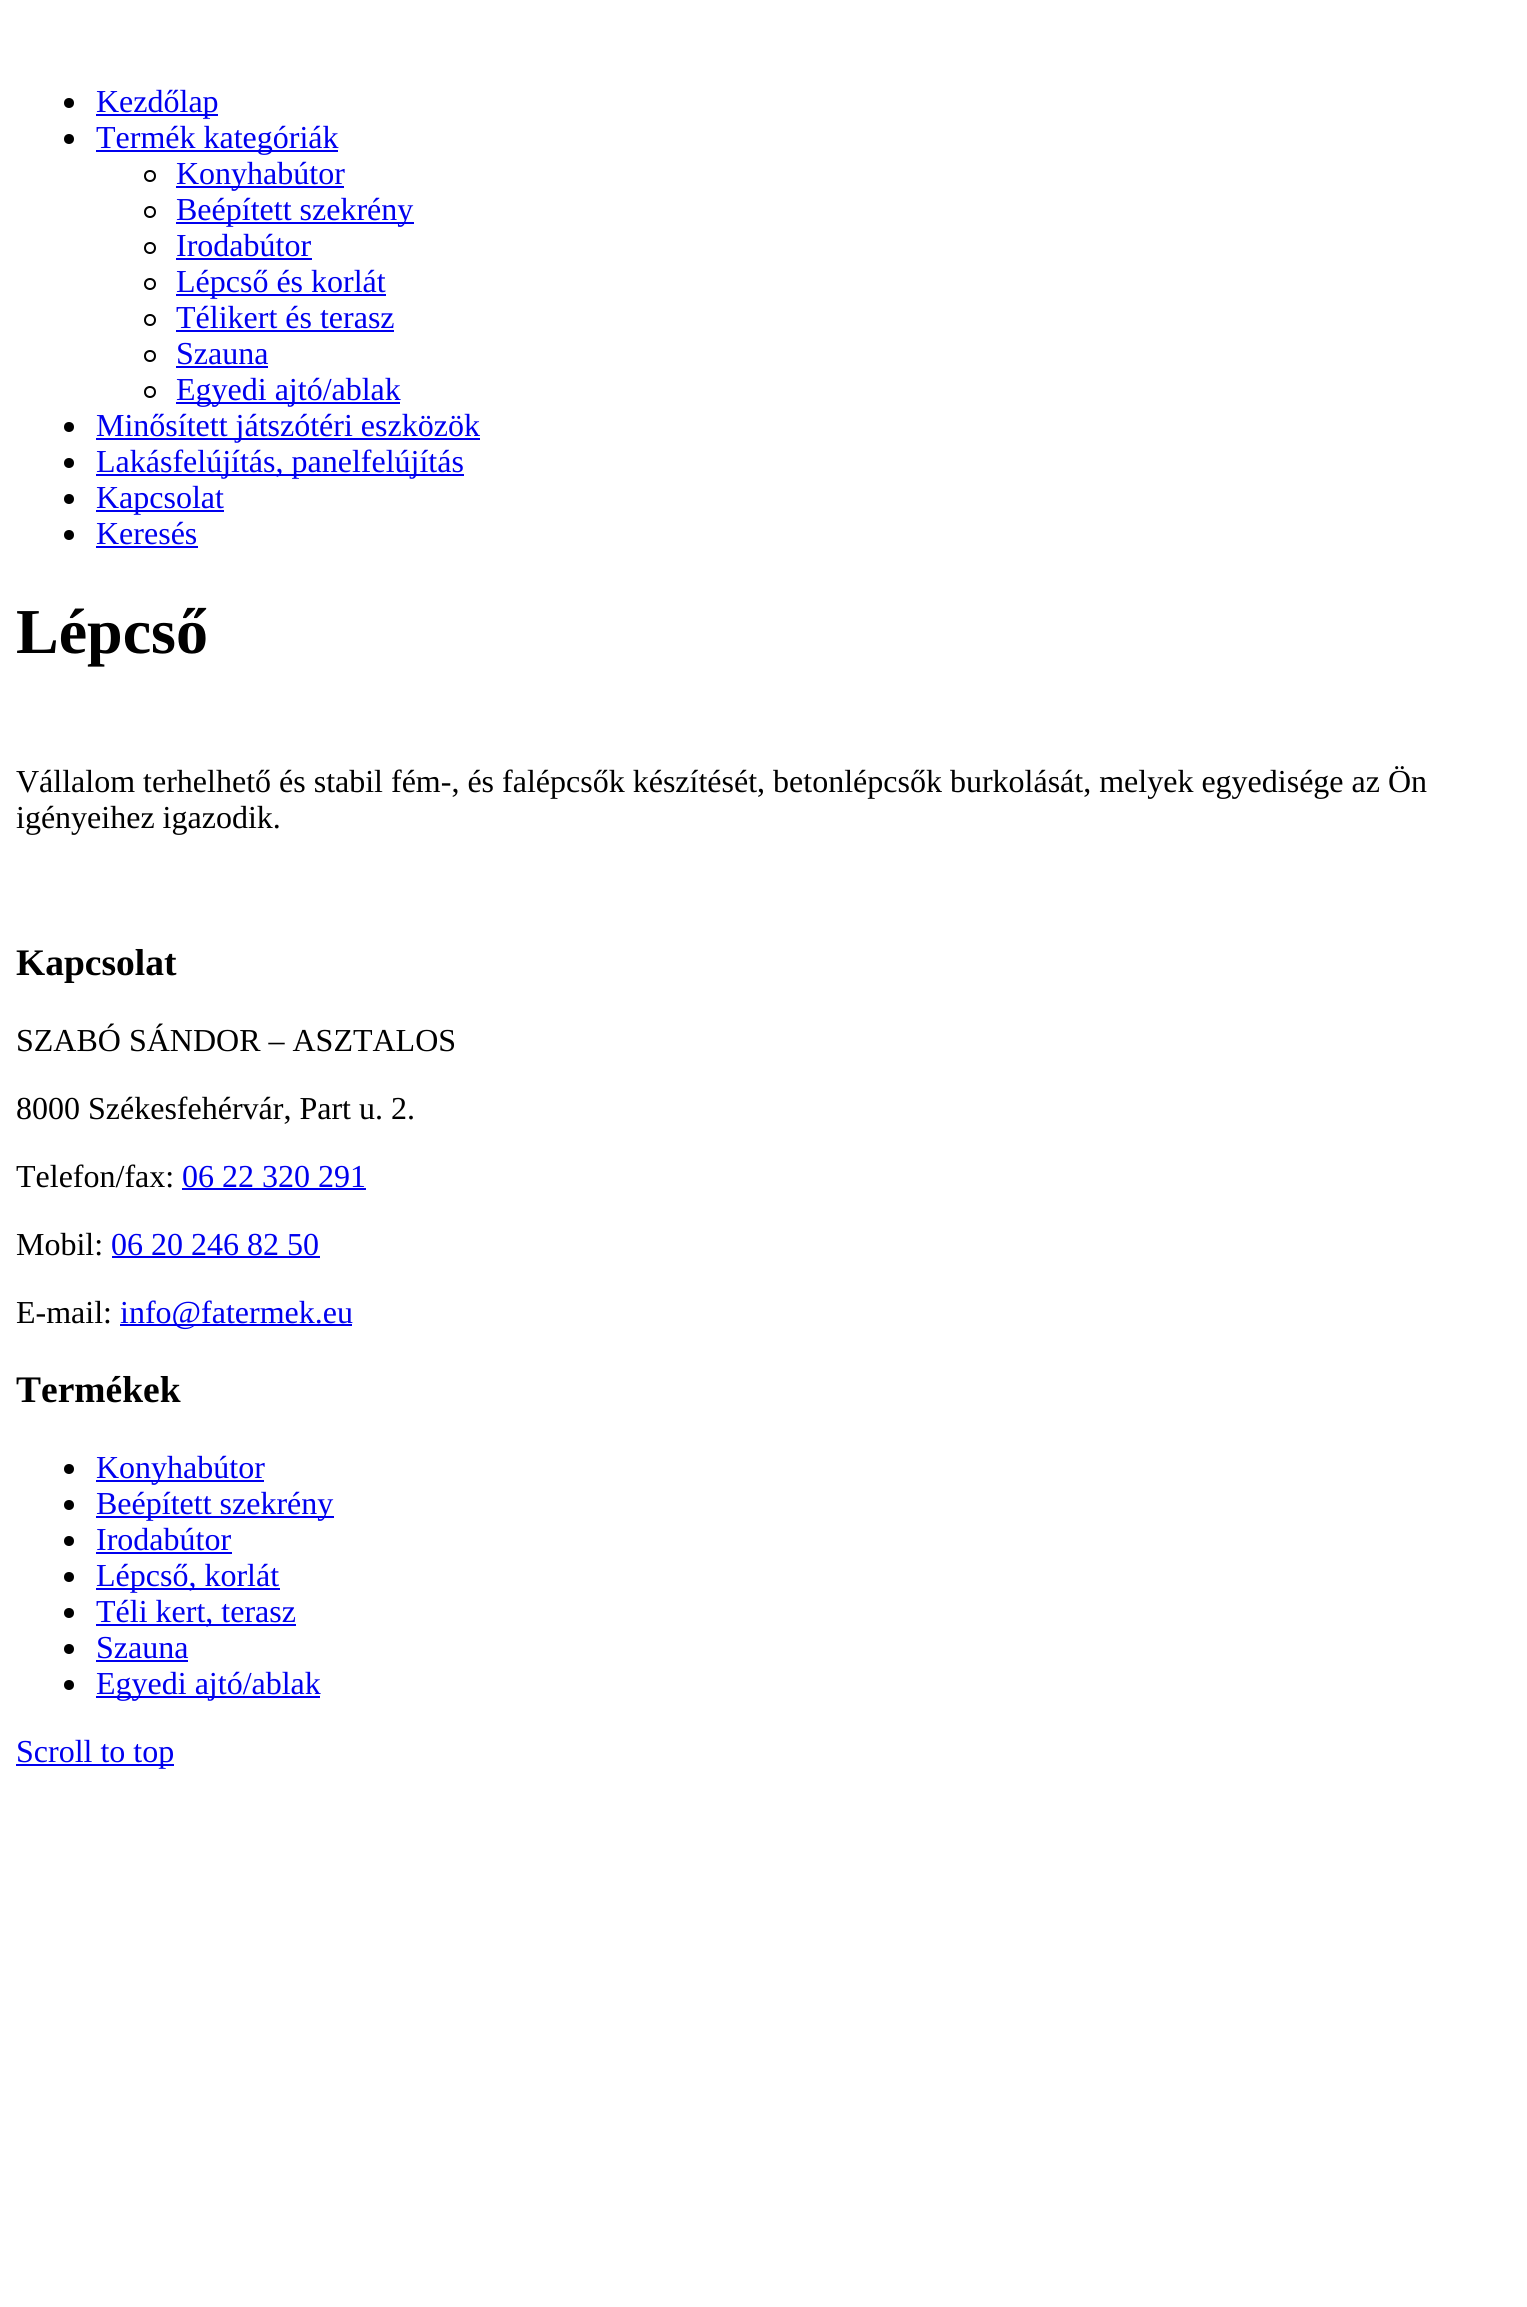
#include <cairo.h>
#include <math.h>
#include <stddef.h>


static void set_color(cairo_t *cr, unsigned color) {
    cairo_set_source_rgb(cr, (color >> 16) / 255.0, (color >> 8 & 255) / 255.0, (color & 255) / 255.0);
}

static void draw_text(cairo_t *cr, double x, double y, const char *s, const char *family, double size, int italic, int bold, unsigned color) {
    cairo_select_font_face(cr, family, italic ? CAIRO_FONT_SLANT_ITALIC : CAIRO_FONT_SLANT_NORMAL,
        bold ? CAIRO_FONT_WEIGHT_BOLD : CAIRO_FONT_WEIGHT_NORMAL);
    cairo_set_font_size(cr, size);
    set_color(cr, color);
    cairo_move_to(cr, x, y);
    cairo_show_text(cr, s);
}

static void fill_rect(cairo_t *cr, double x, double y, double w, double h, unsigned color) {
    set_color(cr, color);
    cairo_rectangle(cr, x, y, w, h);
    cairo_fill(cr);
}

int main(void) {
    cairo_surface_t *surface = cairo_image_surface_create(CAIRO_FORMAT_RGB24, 1527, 2307);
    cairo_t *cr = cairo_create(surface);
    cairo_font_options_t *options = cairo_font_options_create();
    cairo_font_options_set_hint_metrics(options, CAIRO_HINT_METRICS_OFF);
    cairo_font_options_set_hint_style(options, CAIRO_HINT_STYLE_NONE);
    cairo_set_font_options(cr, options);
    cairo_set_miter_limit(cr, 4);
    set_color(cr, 0xFFFFFF);
    cairo_paint(cr);
    set_color(cr, 0x000000);
    cairo_arc(cr, 69, 103, 5, 0, 2 * M_PI);
    cairo_fill(cr);
    fill_rect(cr, 96, 114, 122, 2, 0x0000EE);
    draw_text(cr, 96, 112, "Kezdőlap", "Liberation Serif", 32, 0, 0, 0x0000EE);
    set_color(cr, 0x000000);
    cairo_new_path(cr);
    cairo_arc(cr, 69, 139, 5, 0, 2 * M_PI);
    cairo_fill(cr);
    fill_rect(cr, 96, 150, 242, 2, 0x0000EE);
    draw_text(cr, 96, 148, "Termék kategóriák", "Liberation Serif", 32, 0, 0, 0x0000EE);
    cairo_new_path(cr);
    cairo_arc(cr, 150, 176, 5, 0, 2 * M_PI);
    set_color(cr, 0x000000);
    cairo_stroke(cr);
    fill_rect(cr, 176, 186, 168, 2, 0x0000EE);
    draw_text(cr, 176, 184, "Konyhabútor", "Liberation Serif", 32, 0, 0, 0x0000EE);
    cairo_new_path(cr);
    cairo_arc(cr, 150, 212, 5, 0, 2 * M_PI);
    set_color(cr, 0x000000);
    cairo_stroke(cr);
    fill_rect(cr, 176, 222, 238, 2, 0x0000EE);
    draw_text(cr, 176, 220, "Beépített szekrény", "Liberation Serif", 32, 0, 0, 0x0000EE);
    cairo_new_path(cr);
    cairo_arc(cr, 150, 248, 5, 0, 2 * M_PI);
    set_color(cr, 0x000000);
    cairo_stroke(cr);
    draw_text(cr, 176, 256, "Irodabútor", "Liberation Serif", 32, 0, 0, 0x0000EE);
    fill_rect(cr, 176, 258, 136, 2, 0x0000EE);
    cairo_new_path(cr);
    cairo_arc(cr, 150, 284, 5, 0, 2 * M_PI);
    set_color(cr, 0x000000);
    cairo_stroke(cr);
    fill_rect(cr, 176, 294, 210, 2, 0x0000EE);
    draw_text(cr, 176, 292, "Lépcső és korlát", "Liberation Serif", 32, 0, 0, 0x0000EE);
    cairo_new_path(cr);
    cairo_arc(cr, 150, 320, 5, 0, 2 * M_PI);
    set_color(cr, 0x000000);
    cairo_stroke(cr);
    draw_text(cr, 176, 328, "Télikert és terasz", "Liberation Serif", 32, 0, 0, 0x0000EE);
    fill_rect(cr, 176, 330, 218, 2, 0x0000EE);
    cairo_new_path(cr);
    cairo_arc(cr, 150, 356, 5, 0, 2 * M_PI);
    set_color(cr, 0x000000);
    cairo_stroke(cr);
    draw_text(cr, 176, 364, "Szauna", "Liberation Serif", 32, 0, 0, 0x0000EE);
    fill_rect(cr, 176, 366, 92, 2, 0x0000EE);
    cairo_new_path(cr);
    cairo_arc(cr, 150, 392, 5, 0, 2 * M_PI);
    set_color(cr, 0x000000);
    cairo_stroke(cr);
    fill_rect(cr, 176, 402, 224, 2, 0x0000EE);
    draw_text(cr, 176, 400, "Egyedi ajtó/ablak", "Liberation Serif", 32, 0, 0, 0x0000EE);
    set_color(cr, 0x000000);
    cairo_new_path(cr);
    cairo_arc(cr, 69, 427, 5, 0, 2 * M_PI);
    cairo_fill(cr);
    fill_rect(cr, 96, 438, 384, 2, 0x0000EE);
    draw_text(cr, 96, 436, "Minősített játszótéri eszközök", "Liberation Serif", 32, 0, 0, 0x0000EE);
    set_color(cr, 0x000000);
    cairo_new_path(cr);
    cairo_arc(cr, 69, 463, 5, 0, 2 * M_PI);
    cairo_fill(cr);
    fill_rect(cr, 96, 474, 368, 2, 0x0000EE);
    draw_text(cr, 96, 472, "Lakásfelújítás, panelfelújítás", "Liberation Serif", 32, 0, 0, 0x0000EE);
    set_color(cr, 0x000000);
    cairo_new_path(cr);
    cairo_arc(cr, 69, 499, 5, 0, 2 * M_PI);
    cairo_fill(cr);
    fill_rect(cr, 96, 510, 128, 2, 0x0000EE);
    draw_text(cr, 96, 508, "Kapcsolat", "Liberation Serif", 32, 0, 0, 0x0000EE);
    set_color(cr, 0x000000);
    cairo_new_path(cr);
    cairo_arc(cr, 69, 535, 5, 0, 2 * M_PI);
    cairo_fill(cr);
    draw_text(cr, 96, 544, "Keresés", "Liberation Serif", 32, 0, 0, 0x0000EE);
    fill_rect(cr, 96, 546, 102, 2, 0x0000EE);
    draw_text(cr, 16, 653, "Lépcső", "Liberation Serif", 64, 0, 1, 0x000000);
    draw_text(cr, 16, 792, "Vállalom terhelhető és stabil fém-, és falépcsők készítését, betonlépcsők burkolását, melyek egyedisége az Ön", "Liberation Serif", 32, 0, 0, 0x000000);
    draw_text(cr, 16, 828, "igényeihez igazodik.", "Liberation Serif", 32, 0, 0, 0x000000);
    draw_text(cr, 16, 975, "Kapcsolat", "Liberation Serif", 37.5, 0, 1, 0x000000);
    draw_text(cr, 16, 1051, "SZABÓ SÁNDOR – ASZTALOS", "Liberation Serif", 32, 0, 0, 0x000000);
    draw_text(cr, 16, 1119, "8000 Székesfehérvár, Part u. 2.", "Liberation Serif", 32, 0, 0, 0x000000);
    draw_text(cr, 16, 1187, "Telefon/fax:", "Liberation Serif", 32, 0, 0, 0x000000);
    draw_text(cr, 182, 1187, "06 22 320 291", "Liberation Serif", 32, 0, 0, 0x0000EE);
    fill_rect(cr, 182, 1188, 184, 2, 0x0000EE);
    draw_text(cr, 16, 1255, "Mobil:", "Liberation Serif", 32, 0, 0, 0x000000);
    draw_text(cr, 111, 1255, "06 20 246 82 50", "Liberation Serif", 32, 0, 0, 0x0000EE);
    fill_rect(cr, 112, 1256, 208, 2, 0x0000EE);
    draw_text(cr, 16, 1323, "E-mail:", "Liberation Serif", 32, 0, 0, 0x000000);
    fill_rect(cr, 120, 1324, 232, 2, 0x0000EE);
    draw_text(cr, 120, 1323, "info@fatermek.eu", "Liberation Serif", 32, 0, 0, 0x0000EE);
    draw_text(cr, 16, 1402, "Termékek", "Liberation Serif", 37.5, 0, 1, 0x000000);
    cairo_new_path(cr);
    cairo_arc(cr, 69, 1469, 5, 0, 2 * M_PI);
    cairo_fill(cr);
    fill_rect(cr, 96, 1480, 168, 2, 0x0000EE);
    draw_text(cr, 96, 1478, "Konyhabútor", "Liberation Serif", 32, 0, 0, 0x0000EE);
    set_color(cr, 0x000000);
    cairo_new_path(cr);
    cairo_arc(cr, 69, 1505, 5, 0, 2 * M_PI);
    cairo_fill(cr);
    fill_rect(cr, 96, 1516, 238, 2, 0x0000EE);
    draw_text(cr, 96, 1514, "Beépített szekrény", "Liberation Serif", 32, 0, 0, 0x0000EE);
    set_color(cr, 0x000000);
    cairo_new_path(cr);
    cairo_arc(cr, 69, 1541, 5, 0, 2 * M_PI);
    cairo_fill(cr);
    draw_text(cr, 96, 1550, "Irodabútor", "Liberation Serif", 32, 0, 0, 0x0000EE);
    fill_rect(cr, 96, 1552, 136, 2, 0x0000EE);
    set_color(cr, 0x000000);
    cairo_new_path(cr);
    cairo_arc(cr, 69, 1577, 5, 0, 2 * M_PI);
    cairo_fill(cr);
    fill_rect(cr, 96, 1588, 184, 2, 0x0000EE);
    draw_text(cr, 96, 1586, "Lépcső, korlát", "Liberation Serif", 32, 0, 0, 0x0000EE);
    set_color(cr, 0x000000);
    cairo_new_path(cr);
    cairo_arc(cr, 69, 1613, 5, 0, 2 * M_PI);
    cairo_fill(cr);
    fill_rect(cr, 96, 1624, 200, 2, 0x0000EE);
    draw_text(cr, 96, 1622, "Téli kert, terasz", "Liberation Serif", 32, 0, 0, 0x0000EE);
    set_color(cr, 0x000000);
    cairo_new_path(cr);
    cairo_arc(cr, 69, 1649, 5, 0, 2 * M_PI);
    cairo_fill(cr);
    draw_text(cr, 96, 1658, "Szauna", "Liberation Serif", 32, 0, 0, 0x0000EE);
    fill_rect(cr, 96, 1660, 92, 2, 0x0000EE);
    set_color(cr, 0x000000);
    cairo_new_path(cr);
    cairo_arc(cr, 69, 1685, 5, 0, 2 * M_PI);
    cairo_fill(cr);
    fill_rect(cr, 96, 1696, 224, 2, 0x0000EE);
    draw_text(cr, 96, 1694, "Egyedi ajtó/ablak", "Liberation Serif", 32, 0, 0, 0x0000EE);
    fill_rect(cr, 16, 1764, 158, 2, 0x0000EE);
    draw_text(cr, 16, 1762, "Scroll to top", "Liberation Serif", 32, 0, 0, 0x0000EE);
    cairo_surface_write_to_png(surface, "output.png");
    cairo_font_options_destroy(options);
    cairo_destroy(cr);
    cairo_surface_destroy(surface);
    return 0;
}
